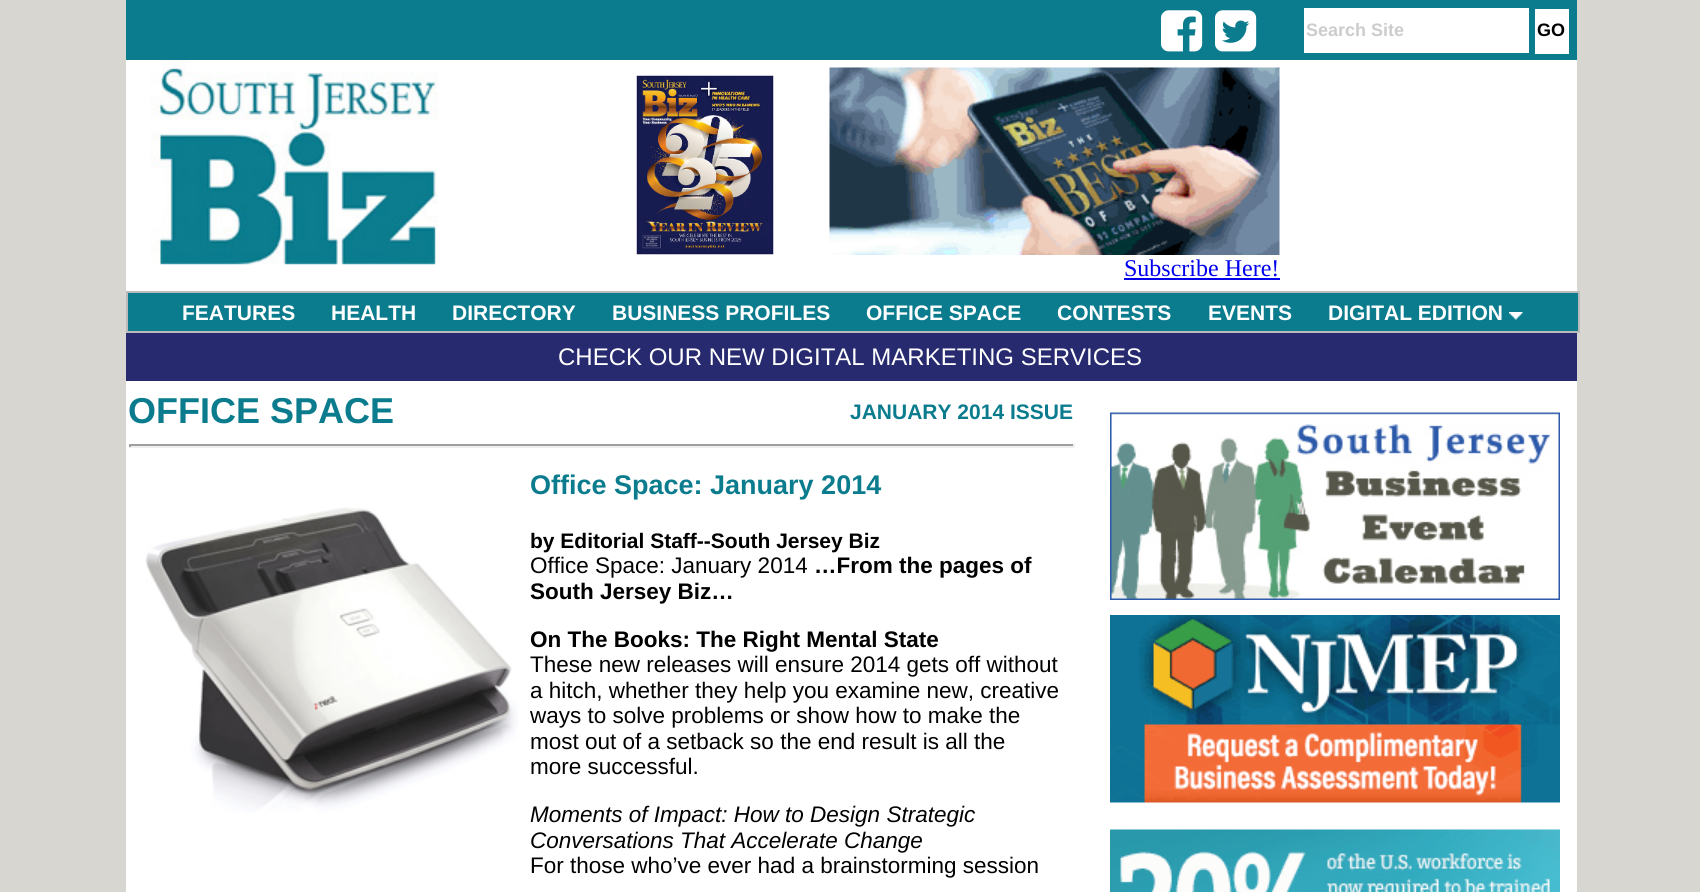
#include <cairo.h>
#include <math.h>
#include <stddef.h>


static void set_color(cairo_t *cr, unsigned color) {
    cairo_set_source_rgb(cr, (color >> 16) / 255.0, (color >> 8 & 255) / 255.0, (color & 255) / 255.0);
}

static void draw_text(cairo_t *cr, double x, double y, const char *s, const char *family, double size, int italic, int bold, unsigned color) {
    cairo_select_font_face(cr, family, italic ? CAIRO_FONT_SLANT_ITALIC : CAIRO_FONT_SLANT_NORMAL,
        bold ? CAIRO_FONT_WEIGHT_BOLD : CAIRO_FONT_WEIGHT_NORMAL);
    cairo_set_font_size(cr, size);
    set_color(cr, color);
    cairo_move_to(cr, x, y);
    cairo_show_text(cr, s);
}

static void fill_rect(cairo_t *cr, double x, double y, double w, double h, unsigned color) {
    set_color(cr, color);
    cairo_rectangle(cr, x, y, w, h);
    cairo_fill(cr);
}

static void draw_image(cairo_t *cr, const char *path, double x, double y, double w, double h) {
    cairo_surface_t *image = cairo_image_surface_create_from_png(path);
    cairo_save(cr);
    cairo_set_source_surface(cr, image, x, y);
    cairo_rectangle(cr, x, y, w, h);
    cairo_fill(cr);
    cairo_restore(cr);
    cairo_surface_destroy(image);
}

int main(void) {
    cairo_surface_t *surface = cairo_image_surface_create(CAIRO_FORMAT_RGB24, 1700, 892);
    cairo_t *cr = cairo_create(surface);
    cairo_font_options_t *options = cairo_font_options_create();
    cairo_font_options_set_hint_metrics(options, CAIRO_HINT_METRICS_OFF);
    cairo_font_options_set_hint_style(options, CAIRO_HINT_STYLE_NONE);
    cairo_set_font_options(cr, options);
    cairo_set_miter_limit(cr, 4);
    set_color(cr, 0xD8D6D0);
    cairo_paint(cr);
    fill_rect(cr, 126, 60, 1451, 832, 0xFFFFFF);
    fill_rect(cr, 126, 0, 1451, 60, 0x0B7C8E);
    draw_image(cr, "assets/img1.png", 1161, 10, 42, 42);
    draw_image(cr, "assets/img2.png", 1215, 10, 42, 42);
    fill_rect(cr, 1304, 8, 225, 45, 0xFFFFFF);
    draw_text(cr, 1306, 36, "Search Site", "Liberation Sans", 18, 0, 1, 0xCCCCCC);
    fill_rect(cr, 1535, 9, 34, 45, 0xFFFFFF);
    draw_text(cr, 1537, 36, "GO", "Liberation Sans", 18, 0, 1, 0x000000);
    draw_image(cr, "assets/img3.png", 150, 60, 288, 205);
    draw_image(cr, "assets/img4.png", 636, 75, 138, 180);
    draw_image(cr, "assets/img5.png", 829, 67, 451, 188);
    draw_text(cr, 1124, 276, "Subscribe Here!", "Liberation Serif", 24, 0, 0, 0x0000EE);
    fill_rect(cr, 1124, 278, 156, 2, 0x0000EE);
    set_color(cr, 0x0B7C8E);
    cairo_rectangle(cr, 127, 292, 1452, 40);
    cairo_fill_preserve(cr);
    set_color(cr, 0xBBBBBB);
    cairo_stroke(cr);
    draw_text(cr, 182, 320, "FEATURES", "Liberation Sans", 21, 0, 1, 0xFFFFFF);
    draw_text(cr, 331, 320, "HEALTH", "Liberation Sans", 21, 0, 1, 0xFFFFFF);
    draw_text(cr, 452, 320, "DIRECTORY", "Liberation Sans", 21, 0, 1, 0xFFFFFF);
    draw_text(cr, 612, 320, "BUSINESS PROFILES", "Liberation Sans", 21, 0, 1, 0xFFFFFF);
    draw_text(cr, 866, 320, "OFFICE SPACE", "Liberation Sans", 21, 0, 1, 0xFFFFFF);
    draw_text(cr, 1057, 320, "CONTESTS", "Liberation Sans", 21, 0, 1, 0xFFFFFF);
    draw_text(cr, 1208, 320, "EVENTS", "Liberation Sans", 21, 0, 1, 0xFFFFFF);
    draw_text(cr, 1328, 320, "DIGITAL EDITION", "Liberation Sans", 21, 0, 1, 0xFFFFFF);
    draw_image(cr, "assets/img6.png", 1509, 312, 14, 8);
    fill_rect(cr, 126, 333, 1451, 48, 0x272A6F);
    draw_text(cr, 558, 365, "CHECK OUR NEW DIGITAL MARKETING SERVICES", "Liberation Sans", 24, 0, 0, 0xFFFFFF);
    draw_text(cr, 128, 423, "OFFICE SPACE", "Liberation Sans", 36, 0, 1, 0x0B7C8E);
    draw_text(cr, 850, 419, "JANUARY 2014 ISSUE", "Liberation Sans", 21, 0, 1, 0x0B7C8E);
    fill_rect(cr, 129, 444, 945, 2, 0x9F9F9F);
    fill_rect(cr, 1073, 444, 2, 3, 0xEEEEEE);
    fill_rect(cr, 129, 446, 945, 2, 0xEEEEEE);
    fill_rect(cr, 129, 444, 2, 3, 0x9F9F9F);
    draw_text(cr, 530, 494, "Office Space: January 2014", "Liberation Sans", 27, 0, 1, 0x0B7C8E);
    draw_image(cr, "assets/img7.png", 145, 507, 373, 306);
    draw_text(cr, 530, 548, "by Editorial Staff--South Jersey Biz", "Liberation Sans", 21, 0, 1, 0x000000);
    draw_text(cr, 530, 573, "Office Space: January 2014", "Liberation Sans", 22.5, 0, 0, 0x000000);
    draw_text(cr, 814, 573, "…From the pages of", "Liberation Sans", 22.5, 0, 1, 0x000000);
    draw_text(cr, 530, 599, "South Jersey Biz…", "Liberation Sans", 22.5, 0, 1, 0x000000);
    draw_text(cr, 530, 647, "On The Books: The Right Mental State", "Liberation Sans", 22.5, 0, 1, 0x000000);
    draw_text(cr, 530, 672, "These new releases will ensure 2014 gets off without", "Liberation Sans", 22.5, 0, 0, 0x000000);
    draw_text(cr, 530, 698, "a hitch, whether they help you examine new, creative", "Liberation Sans", 22.5, 0, 0, 0x000000);
    draw_text(cr, 530, 723, "ways to solve problems or show how to make the", "Liberation Sans", 22.5, 0, 0, 0x000000);
    draw_text(cr, 530, 749, "most out of a setback so the end result is all the", "Liberation Sans", 22.5, 0, 0, 0x000000);
    draw_text(cr, 530, 774, "more successful.", "Liberation Sans", 22.5, 0, 0, 0x000000);
    draw_text(cr, 530, 822, "Moments of Impact: How to Design Strategic", "Liberation Sans", 22.5, 1, 0, 0x000000);
    draw_text(cr, 530, 848, "Conversations That Accelerate Change", "Liberation Sans", 22.5, 1, 0, 0x000000);
    draw_text(cr, 530, 873, "For those who’ve ever had a brainstorming session", "Liberation Sans", 22.5, 0, 0, 0x000000);
    draw_image(cr, "assets/img8.png", 1110, 412, 450, 188);
    draw_image(cr, "assets/img9.png", 1110, 615, 450, 188);
    draw_image(cr, "assets/img10.png", 1110, 829, 450, 63);
    cairo_surface_write_to_png(surface, "output.png");
    cairo_font_options_destroy(options);
    cairo_destroy(cr);
    cairo_surface_destroy(surface);
    return 0;
}
